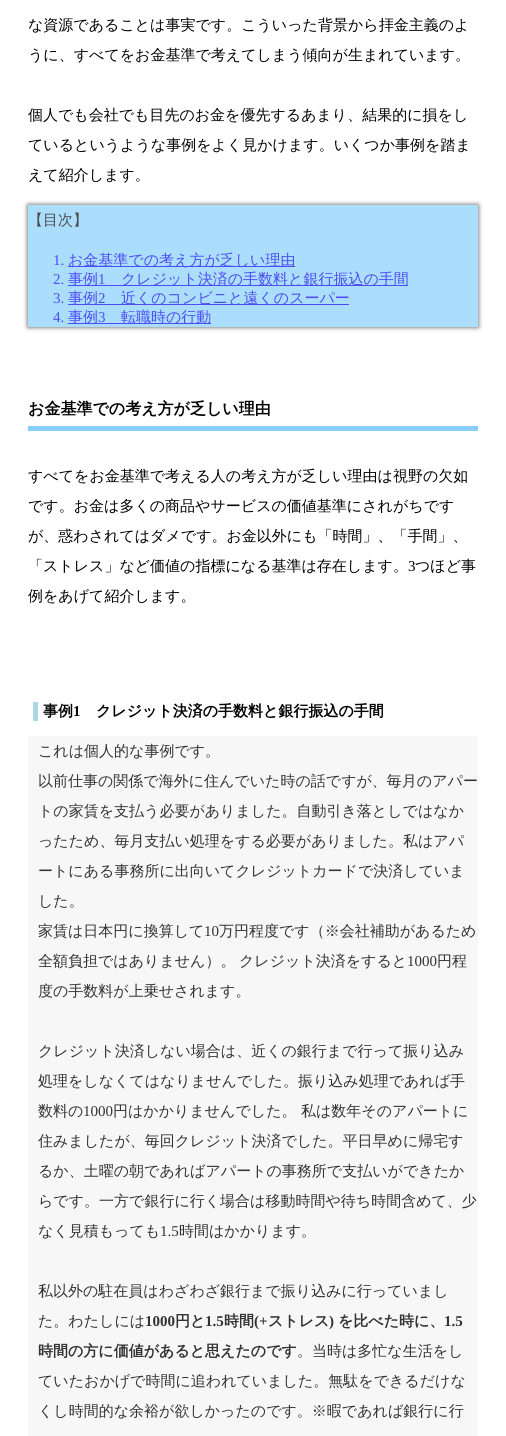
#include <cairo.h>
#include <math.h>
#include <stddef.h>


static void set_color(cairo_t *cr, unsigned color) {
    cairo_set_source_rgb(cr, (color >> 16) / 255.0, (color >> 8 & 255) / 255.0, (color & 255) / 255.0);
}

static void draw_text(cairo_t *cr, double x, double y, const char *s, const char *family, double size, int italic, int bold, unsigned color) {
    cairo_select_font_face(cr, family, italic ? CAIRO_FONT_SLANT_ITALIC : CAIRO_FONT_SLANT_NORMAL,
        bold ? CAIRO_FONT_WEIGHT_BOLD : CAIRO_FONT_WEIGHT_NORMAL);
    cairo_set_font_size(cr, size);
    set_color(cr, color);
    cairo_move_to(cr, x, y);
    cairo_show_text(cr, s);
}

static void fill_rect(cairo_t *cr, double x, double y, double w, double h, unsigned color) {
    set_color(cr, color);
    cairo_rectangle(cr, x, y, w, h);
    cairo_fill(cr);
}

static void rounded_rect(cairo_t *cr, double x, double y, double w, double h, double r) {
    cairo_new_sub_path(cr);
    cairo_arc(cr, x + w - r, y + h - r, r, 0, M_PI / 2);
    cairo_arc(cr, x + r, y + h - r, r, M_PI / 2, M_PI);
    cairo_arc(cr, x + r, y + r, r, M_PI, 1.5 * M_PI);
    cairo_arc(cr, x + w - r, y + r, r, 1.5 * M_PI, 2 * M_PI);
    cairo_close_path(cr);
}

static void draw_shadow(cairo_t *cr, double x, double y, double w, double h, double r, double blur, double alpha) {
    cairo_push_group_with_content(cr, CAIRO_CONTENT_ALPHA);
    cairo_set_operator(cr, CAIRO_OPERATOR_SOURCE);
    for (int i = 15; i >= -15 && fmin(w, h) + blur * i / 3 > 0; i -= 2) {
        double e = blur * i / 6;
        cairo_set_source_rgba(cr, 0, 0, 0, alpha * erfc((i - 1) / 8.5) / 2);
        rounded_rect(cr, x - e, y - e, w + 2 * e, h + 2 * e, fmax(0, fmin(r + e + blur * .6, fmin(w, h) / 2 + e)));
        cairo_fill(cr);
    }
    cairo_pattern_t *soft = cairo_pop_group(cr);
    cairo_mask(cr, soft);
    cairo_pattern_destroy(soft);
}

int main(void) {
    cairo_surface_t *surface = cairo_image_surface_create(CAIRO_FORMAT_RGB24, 506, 1436);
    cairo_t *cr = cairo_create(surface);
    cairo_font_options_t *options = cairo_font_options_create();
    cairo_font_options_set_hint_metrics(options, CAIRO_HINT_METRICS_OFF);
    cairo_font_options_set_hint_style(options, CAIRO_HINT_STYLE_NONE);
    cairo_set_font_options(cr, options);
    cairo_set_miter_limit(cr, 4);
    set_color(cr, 0xFFFFFF);
    cairo_paint(cr);
    draw_text(cr, 28, 30, "な資源であることは事実です。こういった背景から拝金主義のよ", "WenQuanYi Zen Hei Medium", 15, 0, 0, 0x000000);
    draw_text(cr, 28, 60, "うに、すべてをお金基準で考えてしまう傾向が生まれています。", "WenQuanYi Zen Hei Medium", 15, 0, 0, 0x000000);
    draw_text(cr, 28, 120, "個人でも会社でも目先のお金を優先するあまり、結果的に損をし", "WenQuanYi Zen Hei Medium", 15, 0, 0, 0x000000);
    draw_text(cr, 28, 150, "ているというような事例をよく見かけます。いくつか事例を踏ま", "WenQuanYi Zen Hei Medium", 15, 0, 0, 0x000000);
    draw_text(cr, 28, 180, "えて紹介します。", "WenQuanYi Zen Hei Medium", 15, 0, 0, 0x000000);
    set_color(cr, 0x4D4D4D);
    draw_shadow(cr, 28, 205, 450, 122, 0, 2.5, 1);
    fill_rect(cr, 28, 205, 450, 122, 0xABDDFC);
    draw_text(cr, 28, 225, "【目次】", "WenQuanYi Zen Hei Medium", 15, 0, 0, 0x4D4D4D);
    draw_text(cr, 53, 265, "1.", "Liberation Serif", 15, 0, 0, 0x4D4DF3);
    fill_rect(cr, 68, 266, 227, 1, 0x4D4DF3);
    draw_text(cr, 68, 265, "お金基準での考え方が乏しい理由", "WenQuanYi Zen Hei Medium", 15, 0, 0, 0x4D4DF3);
    draw_text(cr, 53, 284, "2.", "Liberation Serif", 15, 0, 0, 0x4D4DF3);
    fill_rect(cr, 68, 285, 340, 1, 0x4D4DF3);
    draw_text(cr, 68, 284, "事例", "WenQuanYi Zen Hei Medium", 15, 0, 0, 0x4D4DF3);
    draw_text(cr, 98, 284, "1", "Liberation Serif", 15, 0, 0, 0x4D4DF3);
    draw_text(cr, 121, 284, "クレジット決済の手数料と銀行振込の手間", "WenQuanYi Zen Hei Medium", 15, 0, 0, 0x4D4DF3);
    draw_text(cr, 53, 303, "3.", "Liberation Serif", 15, 0, 0, 0x4D4DF3);
    fill_rect(cr, 68, 304, 281, 1, 0x4D4DF3);
    draw_text(cr, 68, 303, "事例", "WenQuanYi Zen Hei Medium", 15, 0, 0, 0x4D4DF3);
    draw_text(cr, 98, 303, "2", "Liberation Serif", 15, 0, 0, 0x4D4DF3);
    draw_text(cr, 121, 303, "近くのコンビニと遠くのスーパー", "WenQuanYi Zen Hei Medium", 15, 0, 0, 0x4D4DF3);
    draw_text(cr, 53, 322, "4.", "Liberation Serif", 15, 0, 0, 0x4D4DF3);
    fill_rect(cr, 68, 323, 143, 1, 0x4D4DF3);
    draw_text(cr, 68, 322, "事例", "WenQuanYi Zen Hei Medium", 15, 0, 0, 0x4D4DF3);
    draw_text(cr, 98, 322, "3", "Liberation Serif", 15, 0, 0, 0x4D4DF3);
    draw_text(cr, 121, 322, "転職時の行動", "WenQuanYi Zen Hei Medium", 15, 0, 0, 0x4D4DF3);
    fill_rect(cr, 28, 426, 450, 5, 0x87CEFA);
    draw_text(cr, 28, 414, "お金基準での考え方が乏しい理由", "WenQuanYi Zen Hei", 16, 0, 1, 0x000000);
    draw_text(cr, 28, 481, "すべてをお金基準で考える人の考え方が乏しい理由は視野の欠如", "WenQuanYi Zen Hei Medium", 15, 0, 0, 0x000000);
    draw_text(cr, 28, 511, "です。お金は多くの商品やサービスの価値基準にされがちです", "WenQuanYi Zen Hei Medium", 15, 0, 0, 0x000000);
    draw_text(cr, 28, 541, "が、惑わされてはダメです。お金以外にも「時間」、「手間」、", "WenQuanYi Zen Hei Medium", 15, 0, 0, 0x000000);
    draw_text(cr, 28, 571, "「ストレス」など価値の指標になる基準は存在します。", "WenQuanYi Zen Hei Medium", 15, 0, 0, 0x000000);
    draw_text(cr, 408, 571, "3", "Liberation Serif", 15, 0, 0, 0x000000);
    draw_text(cr, 415, 571, "つほど事", "WenQuanYi Zen Hei Medium", 15, 0, 0, 0x000000);
    draw_text(cr, 28, 601, "例をあげて紹介します。", "WenQuanYi Zen Hei Medium", 15, 0, 0, 0x000000);
    fill_rect(cr, 33, 702, 5, 19, 0xADD8E6);
    draw_text(cr, 43, 716, "事例", "WenQuanYi Zen Hei", 15, 0, 1, 0x000000);
    draw_text(cr, 73, 716, "1", "Liberation Serif", 15, 0, 1, 0x000000);
    draw_text(cr, 96, 716, "クレジット決済の手数料と銀行振込の手間", "WenQuanYi Zen Hei", 15, 0, 1, 0x000000);
    fill_rect(cr, 28, 736, 450, 700, 0xF7F7F7);
    draw_text(cr, 38, 756, "これは個人的な事例です。", "WenQuanYi Zen Hei Medium", 15, 0, 0, 0x333333);
    draw_text(cr, 38, 786, "以前仕事の関係で海外に住んでいた時の話ですが、毎月のアパー", "WenQuanYi Zen Hei Medium", 15, 0, 0, 0x333333);
    draw_text(cr, 38, 816, "トの家賃を支払う必要がありました。自動引き落としではなか", "WenQuanYi Zen Hei Medium", 15, 0, 0, 0x333333);
    draw_text(cr, 38, 846, "ったため、毎月支払い処理をする必要がありました。私はアパ", "WenQuanYi Zen Hei Medium", 15, 0, 0, 0x333333);
    draw_text(cr, 38, 876, "ートにある事務所に出向いてクレジットカードで決済していま", "WenQuanYi Zen Hei Medium", 15, 0, 0, 0x333333);
    draw_text(cr, 38, 906, "した。", "WenQuanYi Zen Hei Medium", 15, 0, 0, 0x333333);
    draw_text(cr, 38, 936, "家賃は日本円に換算して", "WenQuanYi Zen Hei Medium", 15, 0, 0, 0x333333);
    draw_text(cr, 204, 936, "10", "Liberation Serif", 15, 0, 0, 0x333333);
    draw_text(cr, 219, 936, "万円程度です（※会社補助があるため", "WenQuanYi Zen Hei Medium", 15, 0, 0, 0x333333);
    draw_text(cr, 38, 966, "全額負担ではありません）。", "WenQuanYi Zen Hei Medium", 15, 0, 0, 0x333333);
    draw_text(cr, 239, 966, "クレジット決済をすると", "WenQuanYi Zen Hei Medium", 15, 0, 0, 0x333333);
    draw_text(cr, 407, 966, "1000", "Liberation Serif", 15, 0, 0, 0x333333);
    draw_text(cr, 437, 966, "円程", "WenQuanYi Zen Hei Medium", 15, 0, 0, 0x333333);
    draw_text(cr, 38, 996, "度の手数料が上乗せされます。", "WenQuanYi Zen Hei Medium", 15, 0, 0, 0x333333);
    draw_text(cr, 38, 1056, "クレジット決済しない場合は、近くの銀行まで行って振り込み", "WenQuanYi Zen Hei Medium", 15, 0, 0, 0x333333);
    draw_text(cr, 38, 1086, "処理をしなくてはなりませんでした。振り込み処理であれば手", "WenQuanYi Zen Hei Medium", 15, 0, 0, 0x333333);
    draw_text(cr, 38, 1116, "数料の", "WenQuanYi Zen Hei Medium", 15, 0, 0, 0x333333);
    draw_text(cr, 83, 1116, "1000", "Liberation Serif", 15, 0, 0, 0x333333);
    draw_text(cr, 113, 1116, "円はかかりませんでした。", "WenQuanYi Zen Hei Medium", 15, 0, 0, 0x333333);
    draw_text(cr, 301, 1116, "私は数年そのアパートに", "WenQuanYi Zen Hei Medium", 15, 0, 0, 0x333333);
    draw_text(cr, 38, 1146, "住みましたが、毎回クレジット決済でした。平日早めに帰宅す", "WenQuanYi Zen Hei Medium", 15, 0, 0, 0x333333);
    draw_text(cr, 38, 1176, "るか、土曜の朝であればアパートの事務所で支払いができたか", "WenQuanYi Zen Hei Medium", 15, 0, 0, 0x333333);
    draw_text(cr, 38, 1206, "らです。一方で銀行に行く場合は移動時間や待ち時間含めて、少", "WenQuanYi Zen Hei Medium", 15, 0, 0, 0x333333);
    draw_text(cr, 38, 1236, "なく見積もっても", "WenQuanYi Zen Hei Medium", 15, 0, 0, 0x333333);
    draw_text(cr, 160, 1236, "1.5", "Liberation Serif", 15, 0, 0, 0x333333);
    draw_text(cr, 179, 1236, "時間はかかります。", "WenQuanYi Zen Hei Medium", 15, 0, 0, 0x333333);
    draw_text(cr, 38, 1296, "私以外の駐在員はわざわざ銀行まで振り込みに行っていまし", "WenQuanYi Zen Hei Medium", 15, 0, 0, 0x333333);
    draw_text(cr, 38, 1326, "た。わたしには", "WenQuanYi Zen Hei Medium", 15, 0, 0, 0x333333);
    draw_text(cr, 145, 1326, "1000", "Liberation Serif", 15, 0, 1, 0x333333);
    draw_text(cr, 175, 1326, "円と", "WenQuanYi Zen Hei", 15, 0, 1, 0x333333);
    draw_text(cr, 205, 1326, "1.5", "Liberation Serif", 15, 0, 1, 0x333333);
    draw_text(cr, 224, 1326, "時間", "WenQuanYi Zen Hei", 15, 0, 1, 0x333333);
    draw_text(cr, 254, 1326, "(+", "Liberation Serif", 15, 0, 1, 0x333333);
    draw_text(cr, 268, 1326, "ストレス", "WenQuanYi Zen Hei", 15, 0, 1, 0x333333);
    draw_text(cr, 329, 1326, ")", "Liberation Serif", 15, 0, 1, 0x333333);
    draw_text(cr, 338, 1326, "を比べた時に、", "WenQuanYi Zen Hei", 15, 0, 1, 0x333333);
    draw_text(cr, 444, 1326, "1.5", "Liberation Serif", 15, 0, 1, 0x333333);
    draw_text(cr, 38, 1356, "時間の方に価値があると思えたのです", "WenQuanYi Zen Hei", 15, 0, 1, 0x333333);
    draw_text(cr, 297, 1356, "。当時は多忙な生活をし", "WenQuanYi Zen Hei Medium", 15, 0, 0, 0x333333);
    draw_text(cr, 38, 1386, "ていたおかげで時間に追われていました。無駄をできるだけな", "WenQuanYi Zen Hei Medium", 15, 0, 0, 0x333333);
    draw_text(cr, 38, 1416, "くし時間的な余裕が欲しかったのです。※暇であれば銀行に行", "WenQuanYi Zen Hei Medium", 15, 0, 0, 0x333333);
    cairo_surface_write_to_png(surface, "output.png");
    cairo_font_options_destroy(options);
    cairo_destroy(cr);
    cairo_surface_destroy(surface);
    return 0;
}
